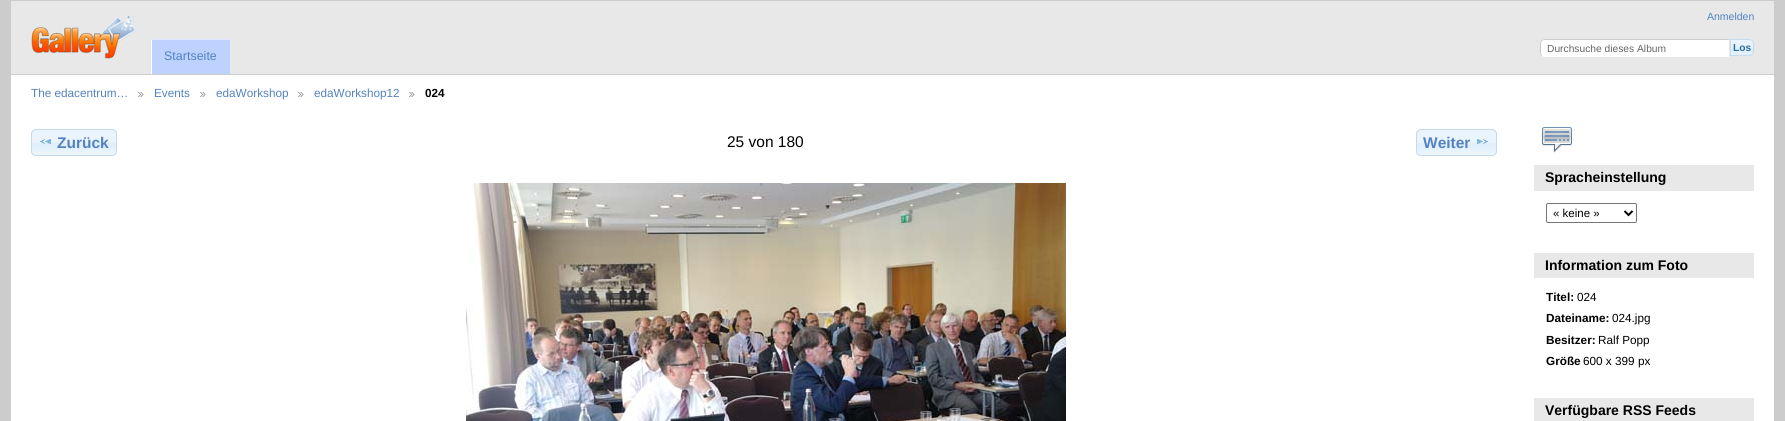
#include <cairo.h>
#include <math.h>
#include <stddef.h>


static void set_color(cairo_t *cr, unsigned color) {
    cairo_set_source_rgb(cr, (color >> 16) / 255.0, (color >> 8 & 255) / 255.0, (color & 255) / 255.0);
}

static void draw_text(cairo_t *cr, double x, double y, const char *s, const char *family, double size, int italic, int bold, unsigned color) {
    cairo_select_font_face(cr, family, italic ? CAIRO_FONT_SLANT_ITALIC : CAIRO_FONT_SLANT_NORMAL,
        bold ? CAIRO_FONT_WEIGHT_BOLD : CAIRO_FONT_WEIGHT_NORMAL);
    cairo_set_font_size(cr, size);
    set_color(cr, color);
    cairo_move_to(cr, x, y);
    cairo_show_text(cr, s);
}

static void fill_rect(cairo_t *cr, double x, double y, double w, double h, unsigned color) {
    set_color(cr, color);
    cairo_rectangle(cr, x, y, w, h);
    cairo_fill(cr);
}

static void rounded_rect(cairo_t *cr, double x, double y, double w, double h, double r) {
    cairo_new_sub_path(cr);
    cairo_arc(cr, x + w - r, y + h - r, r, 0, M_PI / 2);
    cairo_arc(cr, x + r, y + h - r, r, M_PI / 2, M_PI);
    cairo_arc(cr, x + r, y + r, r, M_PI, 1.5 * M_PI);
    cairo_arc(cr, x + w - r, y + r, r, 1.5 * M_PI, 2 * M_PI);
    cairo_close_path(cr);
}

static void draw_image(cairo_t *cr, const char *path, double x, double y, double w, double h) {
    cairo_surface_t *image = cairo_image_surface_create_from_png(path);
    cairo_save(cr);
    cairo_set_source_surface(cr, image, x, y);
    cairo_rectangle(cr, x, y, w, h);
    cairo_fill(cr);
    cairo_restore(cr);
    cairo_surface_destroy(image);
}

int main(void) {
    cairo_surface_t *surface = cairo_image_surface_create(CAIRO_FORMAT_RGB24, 1785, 421);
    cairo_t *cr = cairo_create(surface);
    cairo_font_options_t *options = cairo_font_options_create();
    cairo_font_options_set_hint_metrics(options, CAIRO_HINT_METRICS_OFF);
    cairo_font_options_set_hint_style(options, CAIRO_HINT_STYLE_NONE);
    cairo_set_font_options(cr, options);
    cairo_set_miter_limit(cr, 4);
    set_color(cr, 0xCCCCCC);
    cairo_paint(cr);
    fill_rect(cr, 11, 75, 1763, 346, 0xFFFFFF);
    fill_rect(cr, 11, 1, 1763, 73, 0xE8E8E8);
    draw_image(cr, "assets/img1.png", 31, 15, 106, 44);
    draw_text(cr, 1707, 20, "Anmelden", "Liberation Sans", 10.5, 0, 0, 0x5382BF);
    set_color(cr, 0xFFFFFF);
    cairo_new_path(cr);
    cairo_move_to(cr, 1545, 39);
    cairo_line_to(cr, 1730, 39);
    cairo_line_to(cr, 1730, 58);
    cairo_line_to(cr, 1545, 58);
    cairo_curve_to(cr, 1542, 58, 1540, 56, 1540, 53);
    cairo_line_to(cr, 1540, 44);
    cairo_curve_to(cr, 1540, 41, 1542, 39, 1545, 39);
    cairo_close_path(cr);
    cairo_fill(cr);
    set_color(cr, 0xCCCCCC);
    cairo_new_path(cr);
    cairo_move_to(cr, 1545, 39);
    cairo_curve_to(cr, 1544, 39, 1542, 40, 1541, 40);
    cairo_line_to(cr, 1542, 41);
    cairo_curve_to(cr, 1543, 40, 1544, 40, 1545, 40);
    cairo_line_to(cr, 1729, 40);
    cairo_line_to(cr, 1730, 39);
    cairo_close_path(cr);
    cairo_fill(cr);
    set_color(cr, 0xE8E8E8);
    cairo_new_path(cr);
    cairo_move_to(cr, 1730, 39);
    cairo_line_to(cr, 1729, 40);
    cairo_line_to(cr, 1729, 57);
    cairo_line_to(cr, 1730, 58);
    cairo_close_path(cr);
    cairo_fill(cr);
    cairo_new_path(cr);
    cairo_move_to(cr, 1730, 58);
    cairo_line_to(cr, 1729, 57);
    cairo_line_to(cr, 1544, 57);
    cairo_line_to(cr, 1542, 56);
    cairo_line_to(cr, 1541, 57);
    cairo_curve_to(cr, 1542, 58, 1544, 58, 1545, 58);
    cairo_close_path(cr);
    cairo_fill(cr);
    set_color(cr, 0xCCCCCC);
    cairo_new_path(cr);
    cairo_move_to(cr, 1540, 44);
    cairo_curve_to(cr, 1540, 47, 1539, 54.5, 1541.5, 56.5);
    cairo_line_to(cr, 1542, 56);
    cairo_line_to(cr, 1541, 54);
    cairo_line_to(cr, 1541, 43.5);
    cairo_curve_to(cr, 1541, 42.5, 1541.5, 41.5, 1542, 41);
    cairo_line_to(cr, 1541.5, 40.5);
    cairo_curve_to(cr, 1540.5, 41, 1540, 42.5, 1540, 44);
    cairo_close_path(cr);
    cairo_fill(cr);
    draw_text(cr, 1547, 52, "Durchsuche dieses Album", "Liberation Sans", 10.25, 0, 0, 0x666666);
    draw_image(cr, "assets/img2.png", 1731, 39, 23, 17);
    cairo_new_path(cr);
    cairo_move_to(cr, 1730.5, 39.5);
    cairo_line_to(cr, 1749, 39.5);
    cairo_curve_to(cr, 1751.5, 39.5, 1753.5, 41.5, 1753.5, 44);
    cairo_line_to(cr, 1753.5, 51);
    cairo_curve_to(cr, 1753.5, 53.5, 1751.5, 55.5, 1749, 55.5);
    cairo_line_to(cr, 1730.5, 55.5);
    cairo_close_path(cr);
    set_color(cr, 0xC5DBEC);
    cairo_set_line_width(cr, 1);
    cairo_stroke(cr);
    draw_text(cr, 1733, 51, "Los", "Liberation Sans", 10.25, 0, 1, 0x2E6E9E);
    fill_rect(cr, 151, 39, 79, 35, 0xBDD2FF);
    set_color(cr, 0xDEE9FF);
    cairo_new_path(cr);
    cairo_move_to(cr, 151, 39);
    cairo_line_to(cr, 230, 39);
    cairo_line_to(cr, 230, 40);
    cairo_line_to(cr, 152, 40);
    cairo_close_path(cr);
    cairo_fill(cr);
    set_color(cr, 0xFFFFFF);
    cairo_new_path(cr);
    cairo_move_to(cr, 151, 74);
    cairo_line_to(cr, 151, 39);
    cairo_line_to(cr, 152, 40);
    cairo_line_to(cr, 152, 74);
    cairo_close_path(cr);
    cairo_fill(cr);
    draw_text(cr, 164, 60, "Startseite", "Liberation Sans", 12.5, 0, 0, 0x5382BF);
    draw_text(cr, 31, 97, "The edacentrum…", "Liberation Sans", 11.75, 0, 0, 0x5382BF);
    draw_image(cr, "assets/img3.png", 138, 92, 6, 5);
    draw_text(cr, 154, 97, "Events", "Liberation Sans", 11.75, 0, 0, 0x5382BF);
    draw_image(cr, "assets/img3.png", 200, 92, 6, 5);
    draw_text(cr, 216, 97, "edaWorkshop", "Liberation Sans", 11.75, 0, 0, 0x5382BF);
    draw_image(cr, "assets/img3.png", 298, 92, 6, 5);
    draw_text(cr, 314, 97, "edaWorkshop12", "Liberation Sans", 11.75, 0, 0, 0x5382BF);
    draw_image(cr, "assets/img3.png", 409, 92, 6, 5);
    draw_text(cr, 425, 97, "024", "Liberation Sans", 11.75, 0, 1, 0x000000);
    draw_image(cr, "assets/img4.png", 31, 129, 86, 27);
    rounded_rect(cr, 31.5, 129.5, 85, 26, 4.5);
    set_color(cr, 0xC5DBEC);
    cairo_stroke(cr);
    draw_image(cr, "assets/img5.png", 40, 139, 11, 5);
    draw_text(cr, 57, 148, "Zurück", "Liberation Sans", 15.5, 0, 1, 0x5382BF);
    draw_text(cr, 727, 147, "25 von 180", "Liberation Sans", 15.5, 0, 0, 0x000000);
    draw_image(cr, "assets/img6.png", 1416, 129, 81, 27);
    rounded_rect(cr, 1416.5, 129.5, 80, 26, 4.5);
    set_color(cr, 0xC5DBEC);
    cairo_stroke(cr);
    draw_text(cr, 1423, 148, "Weiter", "Liberation Sans", 15.5, 0, 1, 0x5382BF);
    draw_image(cr, "assets/img7.png", 1477, 139, 11, 5);
    draw_image(cr, "assets/img8.png", 466, 183, 600, 238);
    draw_image(cr, "assets/img9.png", 1542, 127, 30, 26);
    fill_rect(cr, 1534, 165, 220, 26, 0xE8E8E8);
    draw_text(cr, 1545, 182, "Spracheinstellung", "Liberation Sans", 14, 0, 1, 0x000000);
    rounded_rect(cr, 1546.5, 203.5, 90, 19, 1.5);
    set_color(cr, 0x767676);
    cairo_stroke(cr);
    cairo_new_path(cr);
    cairo_move_to(cr, 1624.5, 211);
    cairo_line_to(cr, 1628.5, 215);
    cairo_line_to(cr, 1632.5, 211);
    set_color(cr, 0x000000);
    cairo_set_line_width(cr, 2);
    cairo_stroke(cr);
    draw_text(cr, 1553, 217, "« keine »", "Liberation Sans", 11.5, 0, 0, 0x000000);
    fill_rect(cr, 1534, 253, 220, 25, 0xE8E8E8);
    draw_text(cr, 1545, 270, "Information zum Foto", "Liberation Sans", 14, 0, 1, 0x000000);
    draw_text(cr, 1546, 301, "Titel:", "Liberation Sans", 11.75, 0, 1, 0x000000);
    draw_text(cr, 1577, 301, "024", "Liberation Sans", 11.75, 0, 0, 0x000000);
    draw_text(cr, 1546, 322, "Dateiname:", "Liberation Sans", 11.75, 0, 1, 0x000000);
    draw_text(cr, 1612, 322, "024.jpg", "Liberation Sans", 11.75, 0, 0, 0x000000);
    draw_text(cr, 1546, 344, "Besitzer:", "Liberation Sans", 11.75, 0, 1, 0x000000);
    draw_text(cr, 1598, 344, "Ralf Popp", "Liberation Sans", 11.75, 0, 0, 0x000000);
    draw_text(cr, 1546, 365, "Größe", "Liberation Sans", 11.75, 0, 1, 0x000000);
    draw_text(cr, 1583, 365, "600 x 399 px", "Liberation Sans", 11.75, 0, 0, 0x000000);
    fill_rect(cr, 1534, 398, 220, 23, 0xE8E8E8);
    draw_text(cr, 1545, 415, "Verfügbare RSS Feeds", "Liberation Sans", 14, 0, 1, 0x000000);
    cairo_surface_write_to_png(surface, "output.png");
    cairo_font_options_destroy(options);
    cairo_destroy(cr);
    cairo_surface_destroy(surface);
    return 0;
}
